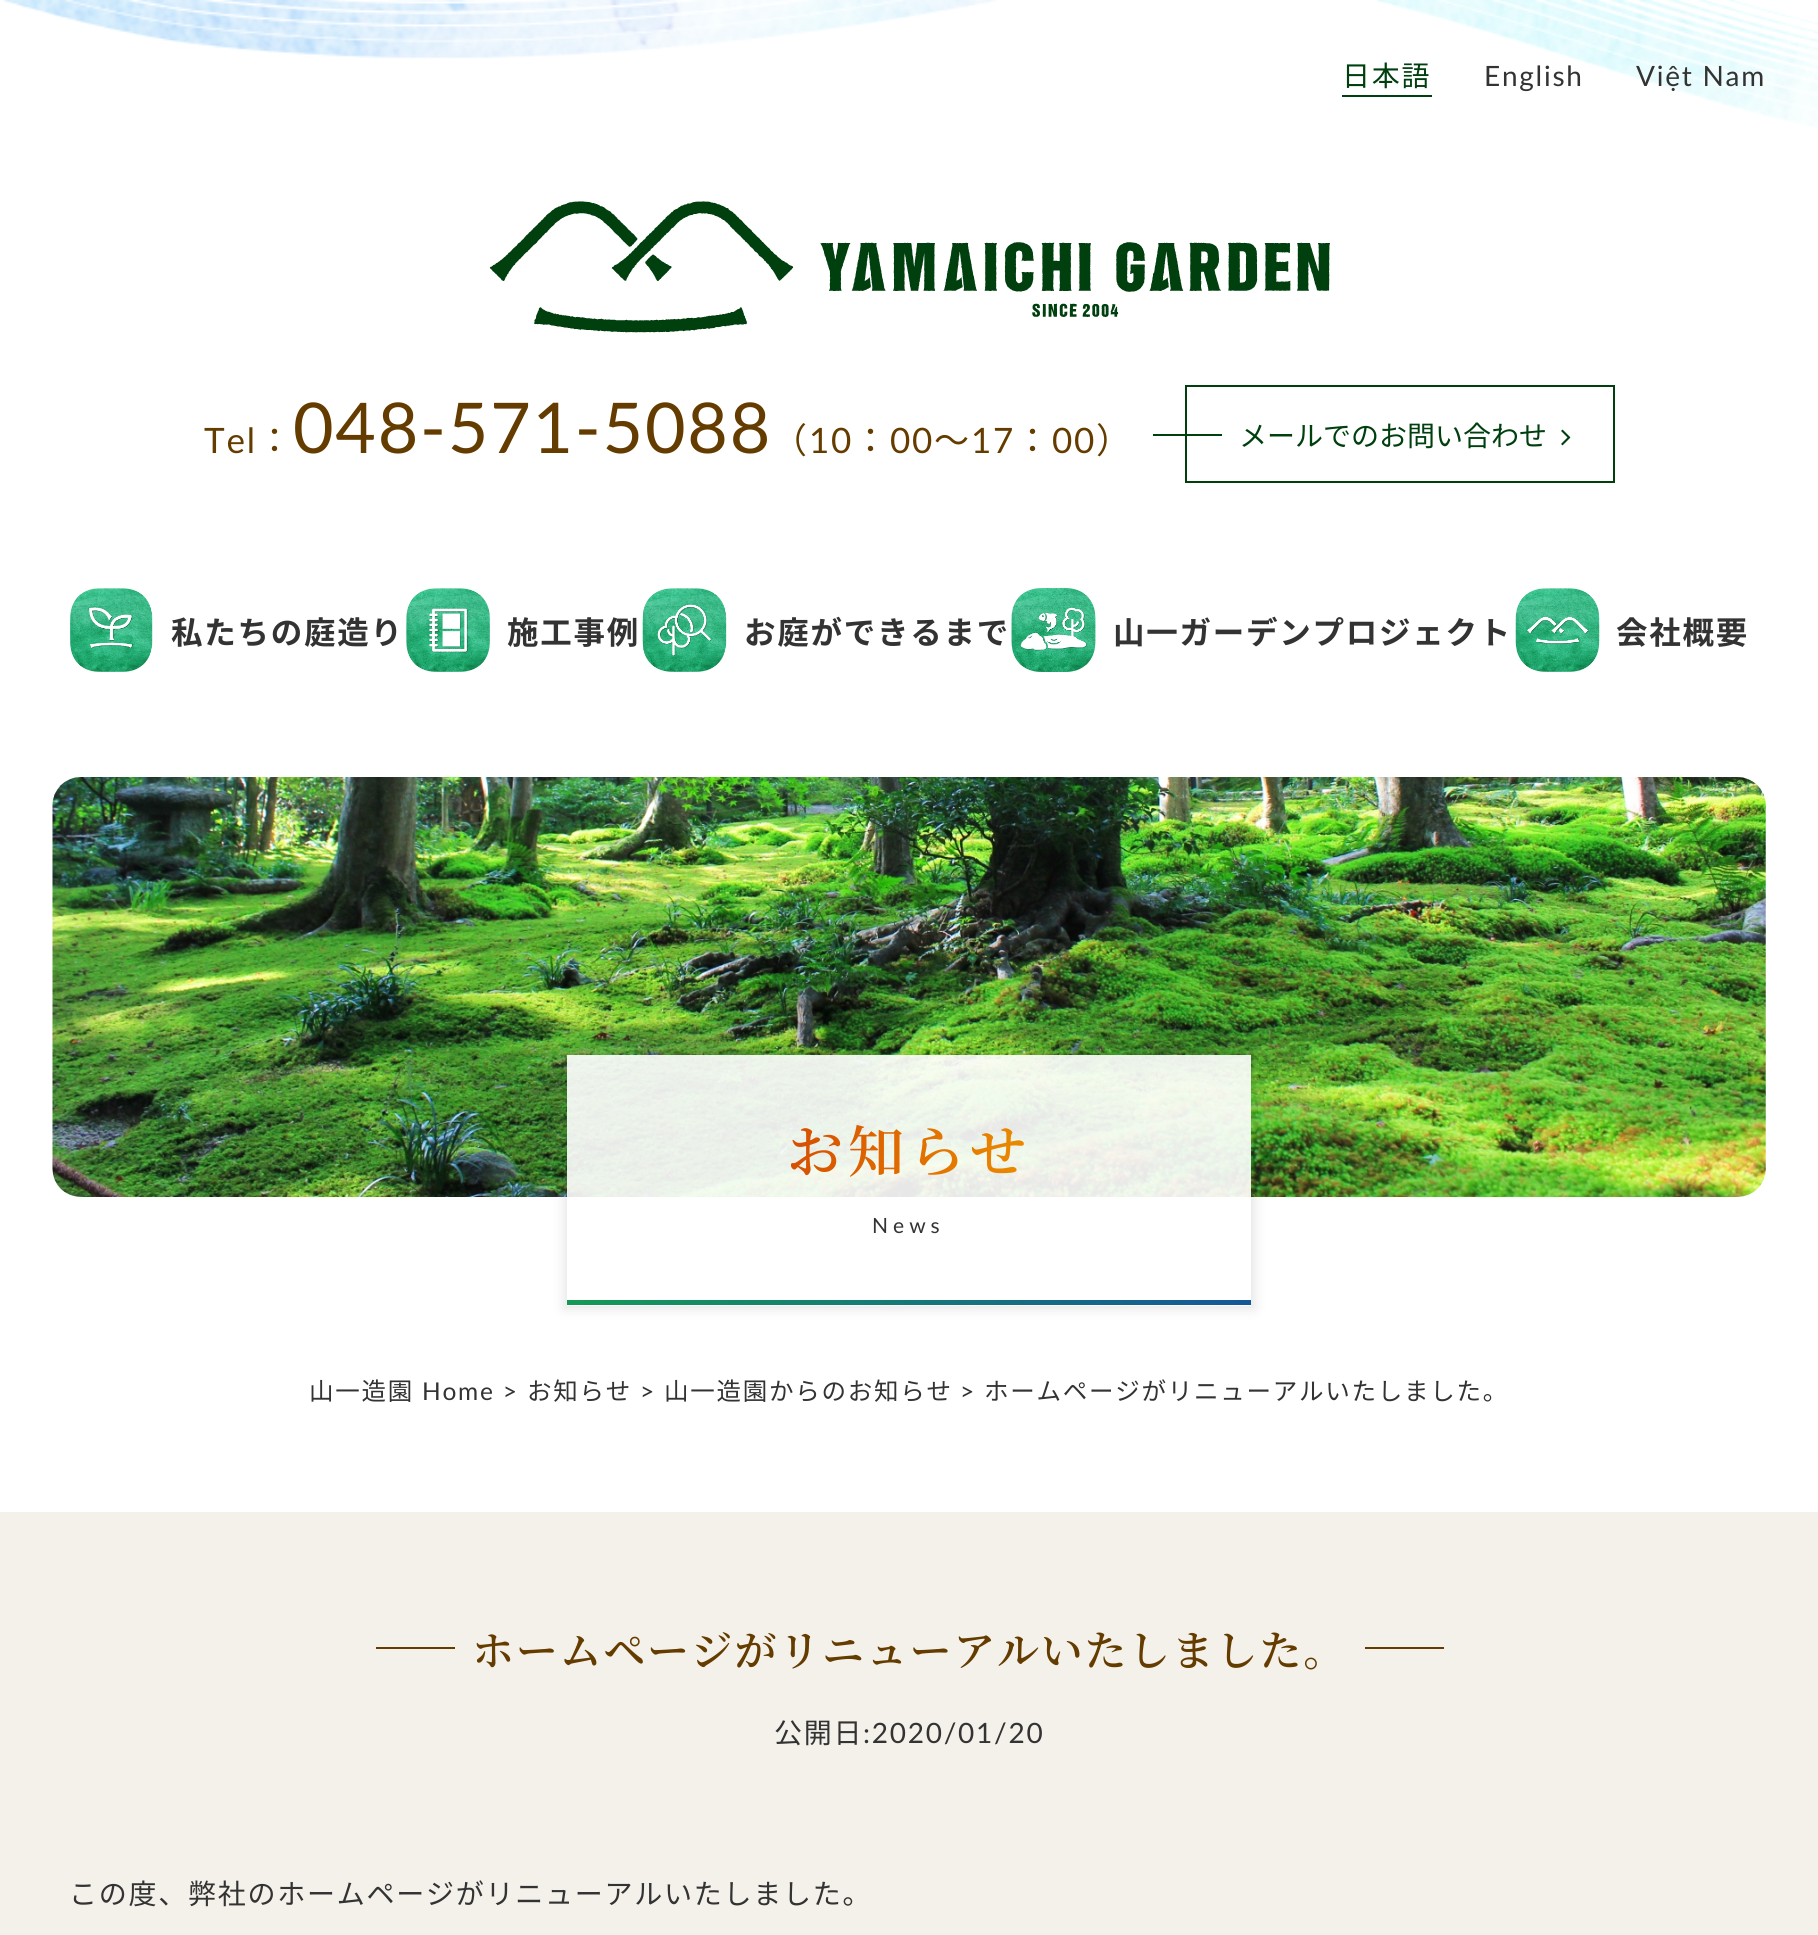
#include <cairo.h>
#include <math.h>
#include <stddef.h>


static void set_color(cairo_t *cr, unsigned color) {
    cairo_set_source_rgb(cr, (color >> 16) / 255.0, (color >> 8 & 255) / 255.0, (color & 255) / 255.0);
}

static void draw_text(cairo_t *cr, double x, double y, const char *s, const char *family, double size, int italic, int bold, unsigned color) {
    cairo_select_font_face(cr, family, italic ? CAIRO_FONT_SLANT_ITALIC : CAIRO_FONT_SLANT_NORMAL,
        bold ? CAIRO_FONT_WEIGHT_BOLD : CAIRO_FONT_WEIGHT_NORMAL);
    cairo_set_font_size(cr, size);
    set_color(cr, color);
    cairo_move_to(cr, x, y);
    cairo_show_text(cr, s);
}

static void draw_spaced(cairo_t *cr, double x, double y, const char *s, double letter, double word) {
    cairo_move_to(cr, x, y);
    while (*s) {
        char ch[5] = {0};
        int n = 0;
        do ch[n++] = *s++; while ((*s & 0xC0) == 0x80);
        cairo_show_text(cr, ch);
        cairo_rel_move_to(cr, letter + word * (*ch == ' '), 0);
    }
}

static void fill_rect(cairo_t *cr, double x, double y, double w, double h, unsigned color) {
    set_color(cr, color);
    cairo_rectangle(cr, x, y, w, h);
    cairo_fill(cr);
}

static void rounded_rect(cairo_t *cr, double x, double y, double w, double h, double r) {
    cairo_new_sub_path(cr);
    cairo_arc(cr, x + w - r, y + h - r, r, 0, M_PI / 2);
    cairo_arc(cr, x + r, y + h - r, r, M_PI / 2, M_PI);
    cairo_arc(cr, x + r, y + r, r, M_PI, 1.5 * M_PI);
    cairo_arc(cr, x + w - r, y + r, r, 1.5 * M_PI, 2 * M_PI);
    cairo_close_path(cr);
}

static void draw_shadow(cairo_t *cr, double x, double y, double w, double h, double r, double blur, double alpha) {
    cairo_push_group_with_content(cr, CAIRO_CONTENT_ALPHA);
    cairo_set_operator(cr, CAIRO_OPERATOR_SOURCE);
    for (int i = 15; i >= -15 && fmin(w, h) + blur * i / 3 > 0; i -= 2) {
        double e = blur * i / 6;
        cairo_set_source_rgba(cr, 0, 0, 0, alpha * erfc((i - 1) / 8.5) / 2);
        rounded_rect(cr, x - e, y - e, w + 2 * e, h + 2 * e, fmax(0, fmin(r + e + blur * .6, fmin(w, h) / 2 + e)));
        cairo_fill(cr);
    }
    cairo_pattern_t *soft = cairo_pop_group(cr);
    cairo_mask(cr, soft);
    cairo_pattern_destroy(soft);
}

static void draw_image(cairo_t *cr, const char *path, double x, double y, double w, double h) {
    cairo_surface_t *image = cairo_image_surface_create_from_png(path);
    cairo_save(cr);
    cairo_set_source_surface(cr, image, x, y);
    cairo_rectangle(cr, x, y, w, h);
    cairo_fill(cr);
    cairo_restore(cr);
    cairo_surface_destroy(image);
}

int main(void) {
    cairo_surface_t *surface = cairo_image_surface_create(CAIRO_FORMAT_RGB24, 1818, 1935);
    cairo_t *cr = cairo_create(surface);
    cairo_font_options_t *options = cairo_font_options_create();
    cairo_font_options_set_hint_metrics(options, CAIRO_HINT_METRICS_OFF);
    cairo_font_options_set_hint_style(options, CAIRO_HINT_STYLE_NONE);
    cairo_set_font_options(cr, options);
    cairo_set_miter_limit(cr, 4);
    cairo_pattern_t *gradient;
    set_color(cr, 0xFFFFFF);
    cairo_paint(cr);
    draw_image(cr, "assets/img1.png", 3, 0, 1815, 128);
    fill_rect(cr, 1342, 95, 90, 2, 0x003F0E);
    cairo_select_font_face(cr, "Noto Sans JP", CAIRO_FONT_SLANT_NORMAL, CAIRO_FONT_WEIGHT_NORMAL);
    cairo_set_font_size(cr, 28);
    draw_spaced(cr, 1342, 86, "日本語", 1.75, 0);
    cairo_select_font_face(cr, "Lato", CAIRO_FONT_SLANT_NORMAL, CAIRO_FONT_WEIGHT_NORMAL);
    set_color(cr, 0x333333);
    draw_spaced(cr, 1484, 86, "English", 1.75, 0);
    draw_spaced(cr, 1636, 86, "Việt Nam", 1.75, 0);
    draw_image(cr, "assets/img2.png", 490, 201, 840, 132);
    cairo_set_font_size(cr, 35);
    set_color(cr, 0x653C00);
    draw_spaced(cr, 204, 453, "Tel", 1.75, 0);
    cairo_select_font_face(cr, "Noto Sans JP", CAIRO_FONT_SLANT_NORMAL, CAIRO_FONT_WEIGHT_NORMAL);
    draw_spaced(cr, 257, 453, "：", 1.75, 0);
    cairo_select_font_face(cr, "Lato", CAIRO_FONT_SLANT_NORMAL, CAIRO_FONT_WEIGHT_NORMAL);
    cairo_set_font_size(cr, 70);
    draw_spaced(cr, 293, 453, "048-571-5088", 1.75, 0);
    cairo_select_font_face(cr, "Noto Sans JP", CAIRO_FONT_SLANT_NORMAL, CAIRO_FONT_WEIGHT_NORMAL);
    cairo_set_font_size(cr, 35);
    draw_spaced(cr, 772, 453, "（", 1.75, 0);
    cairo_select_font_face(cr, "Lato", CAIRO_FONT_SLANT_NORMAL, CAIRO_FONT_WEIGHT_NORMAL);
    draw_spaced(cr, 809, 453, "10", 1.75, 0);
    cairo_select_font_face(cr, "Noto Sans JP", CAIRO_FONT_SLANT_NORMAL, CAIRO_FONT_WEIGHT_NORMAL);
    draw_spaced(cr, 853, 453, "：", 1.75, 0);
    cairo_select_font_face(cr, "Lato", CAIRO_FONT_SLANT_NORMAL, CAIRO_FONT_WEIGHT_NORMAL);
    draw_spaced(cr, 890, 453, "00", 1.75, 0);
    cairo_select_font_face(cr, "Noto Sans JP", CAIRO_FONT_SLANT_NORMAL, CAIRO_FONT_WEIGHT_NORMAL);
    draw_spaced(cr, 934, 453, "〜", 1.75, 0);
    cairo_select_font_face(cr, "Lato", CAIRO_FONT_SLANT_NORMAL, CAIRO_FONT_WEIGHT_NORMAL);
    draw_spaced(cr, 971, 453, "17", 1.75, 0);
    cairo_select_font_face(cr, "Noto Sans JP", CAIRO_FONT_SLANT_NORMAL, CAIRO_FONT_WEIGHT_NORMAL);
    draw_spaced(cr, 1015, 453, "：", 1.75, 0);
    cairo_select_font_face(cr, "Lato", CAIRO_FONT_SLANT_NORMAL, CAIRO_FONT_WEIGHT_NORMAL);
    draw_spaced(cr, 1052, 453, "00", 1.75, 0);
    cairo_select_font_face(cr, "Noto Sans JP", CAIRO_FONT_SLANT_NORMAL, CAIRO_FONT_WEIGHT_NORMAL);
    draw_spaced(cr, 1096, 453, "）", 1.75, 0);
    cairo_rectangle(cr, 1186, 386, 428, 96);
    set_color(cr, 0x003F0E);
    cairo_stroke(cr);
    fill_rect(cr, 1153, 434, 69, 2, 0x003F0E);
    draw_text(cr, 1239, 446, "メールでのお問い合わせ", "Noto Sans JP", 28, 0, 0, 0x003F0E);
    draw_image(cr, "assets/img3.png", 1561, 429, 10, 17);
    draw_image(cr, "assets/img4.png", 70, 588, 83, 84);
    cairo_select_font_face(cr, "Noto Sans JP", CAIRO_FONT_SLANT_NORMAL, CAIRO_FONT_WEIGHT_BOLD);
    cairo_set_font_size(cr, 31.5);
    set_color(cr, 0x333333);
    draw_spaced(cr, 171, 644, "私たちの庭造り", 1.75, 0);
    draw_image(cr, "assets/img5.png", 406, 588, 84, 84);
    draw_spaced(cr, 507, 644, "施工事例", 1.75, 0);
    draw_image(cr, "assets/img6.png", 642, 588, 85, 84);
    draw_spaced(cr, 744, 644, "お庭ができるまで", 1.75, 0);
    draw_image(cr, "assets/img7.png", 1011, 588, 85, 84);
    draw_spaced(cr, 1113, 644, "山一ガーデンプロジェクト", 1.75, 0);
    draw_image(cr, "assets/img8.png", 1515, 588, 85, 84);
    draw_spaced(cr, 1616, 644, "会社概要", 1.75, 0);
    draw_image(cr, "assets/img9.png", 52, 777, 1714, 420);
    cairo_save(cr);
    cairo_set_fill_rule(cr, CAIRO_FILL_RULE_EVEN_ODD);
    cairo_new_path(cr);
    cairo_move_to(cr, 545, 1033);
    cairo_line_to(cr, 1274, 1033);
    cairo_line_to(cr, 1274, 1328);
    cairo_line_to(cr, 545, 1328);
    cairo_close_path(cr);
    cairo_move_to(cr, 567, 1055);
    cairo_line_to(cr, 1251, 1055);
    cairo_line_to(cr, 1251, 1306);
    cairo_line_to(cr, 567, 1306);
    cairo_close_path(cr);
    cairo_clip(cr);
    set_color(cr, 0x000000);
    draw_shadow(cr, 564, 1052, 691, 257, 0, 6, 0.1);
    cairo_restore(cr);
    cairo_set_source_rgba(cr, 1, 1, 1, 0.9);
    cairo_rectangle(cr, 567, 1055, 684, 251);
    cairo_fill(cr);
    cairo_select_font_face(cr, "Noto Serif JP SemiBold", CAIRO_FONT_SLANT_NORMAL, CAIRO_FONT_WEIGHT_NORMAL);
    cairo_set_font_size(cr, 56);
    gradient = cairo_pattern_create_linear(566, 1107, 1252, 1188);
    cairo_pattern_add_color_stop_rgba(gradient, 0, 0.761, 0.082, 0, 1);
    cairo_pattern_add_color_stop_rgba(gradient, 1, 1, 0.773, 0, 1);
    cairo_set_source(cr, gradient);
    cairo_pattern_destroy(gradient);
    draw_spaced(cr, 787, 1172, "お知らせ", 5, 0);
    cairo_select_font_face(cr, "Lato", CAIRO_FONT_SLANT_NORMAL, CAIRO_FONT_WEIGHT_NORMAL);
    cairo_set_font_size(cr, 21);
    set_color(cr, 0x333333);
    draw_spaced(cr, 872, 1233, "News", 5, 0);
    gradient = cairo_pattern_create_linear(567, 1299, 1252, 1305);
    cairo_pattern_add_color_stop_rgba(gradient, 0, 0.082, 0.6, 0.341, 1);
    cairo_pattern_add_color_stop_rgba(gradient, 1, 0.082, 0.341, 0.6, 1);
    cairo_set_source(cr, gradient);
    cairo_pattern_destroy(gradient);
    cairo_rectangle(cr, 567, 1300, 684, 5);
    cairo_fill(cr);
    cairo_select_font_face(cr, "Noto Sans JP", CAIRO_FONT_SLANT_NORMAL, CAIRO_FONT_WEIGHT_NORMAL);
    cairo_set_font_size(cr, 24.5);
    set_color(cr, 0x333333);
    draw_spaced(cr, 309, 1400, "山一造園", 1.75, 0);
    cairo_select_font_face(cr, "Lato", CAIRO_FONT_SLANT_NORMAL, CAIRO_FONT_WEIGHT_NORMAL);
    draw_spaced(cr, 422, 1400, "Home >", 1.75, 0);
    cairo_select_font_face(cr, "Noto Sans JP", CAIRO_FONT_SLANT_NORMAL, CAIRO_FONT_WEIGHT_NORMAL);
    draw_spaced(cr, 527, 1400, "お知らせ", 1.75, 0);
    cairo_select_font_face(cr, "Lato", CAIRO_FONT_SLANT_NORMAL, CAIRO_FONT_WEIGHT_NORMAL);
    draw_spaced(cr, 640, 1400, ">", 1.75, 0);
    cairo_select_font_face(cr, "Noto Sans JP", CAIRO_FONT_SLANT_NORMAL, CAIRO_FONT_WEIGHT_NORMAL);
    draw_spaced(cr, 664, 1400, "山一造園からのお知らせ", 1.75, 0);
    cairo_select_font_face(cr, "Lato", CAIRO_FONT_SLANT_NORMAL, CAIRO_FONT_WEIGHT_NORMAL);
    draw_spaced(cr, 960, 1400, ">", 1.75, 0);
    cairo_select_font_face(cr, "Noto Sans JP", CAIRO_FONT_SLANT_NORMAL, CAIRO_FONT_WEIGHT_NORMAL);
    draw_spaced(cr, 984, 1400, "ホームページがリニューアルいたしました。", 1.75, 0);
    fill_rect(cr, 0, 1512, 1818, 423, 0xF3F1EA);
    fill_rect(cr, 376, 1647, 79, 2, 0x653C00);
    cairo_select_font_face(cr, "Noto Serif JP SemiBold", CAIRO_FONT_SLANT_NORMAL, CAIRO_FONT_WEIGHT_NORMAL);
    cairo_set_font_size(cr, 42);
    draw_spaced(cr, 472, 1666, "ホームページがリニューアルいたしました。", 1.75, 0);
    fill_rect(cr, 1365, 1647, 79, 2, 0x653C00);
    cairo_select_font_face(cr, "Noto Sans JP", CAIRO_FONT_SLANT_NORMAL, CAIRO_FONT_WEIGHT_NORMAL);
    cairo_set_font_size(cr, 28);
    set_color(cr, 0x333333);
    draw_spaced(cr, 774, 1743, "公開日", 1.75, 0);
    cairo_select_font_face(cr, "Lato", CAIRO_FONT_SLANT_NORMAL, CAIRO_FONT_WEIGHT_NORMAL);
    draw_spaced(cr, 863, 1743, ":2020/01/20", 1.75, 0);
    cairo_select_font_face(cr, "Noto Sans JP", CAIRO_FONT_SLANT_NORMAL, CAIRO_FONT_WEIGHT_NORMAL);
    draw_spaced(cr, 69, 1904, "この度、弊社のホームページがリニューアルいたしました。", 1.75, 0);
    cairo_surface_write_to_png(surface, "output.png");
    cairo_font_options_destroy(options);
    cairo_destroy(cr);
    cairo_surface_destroy(surface);
    return 0;
}
